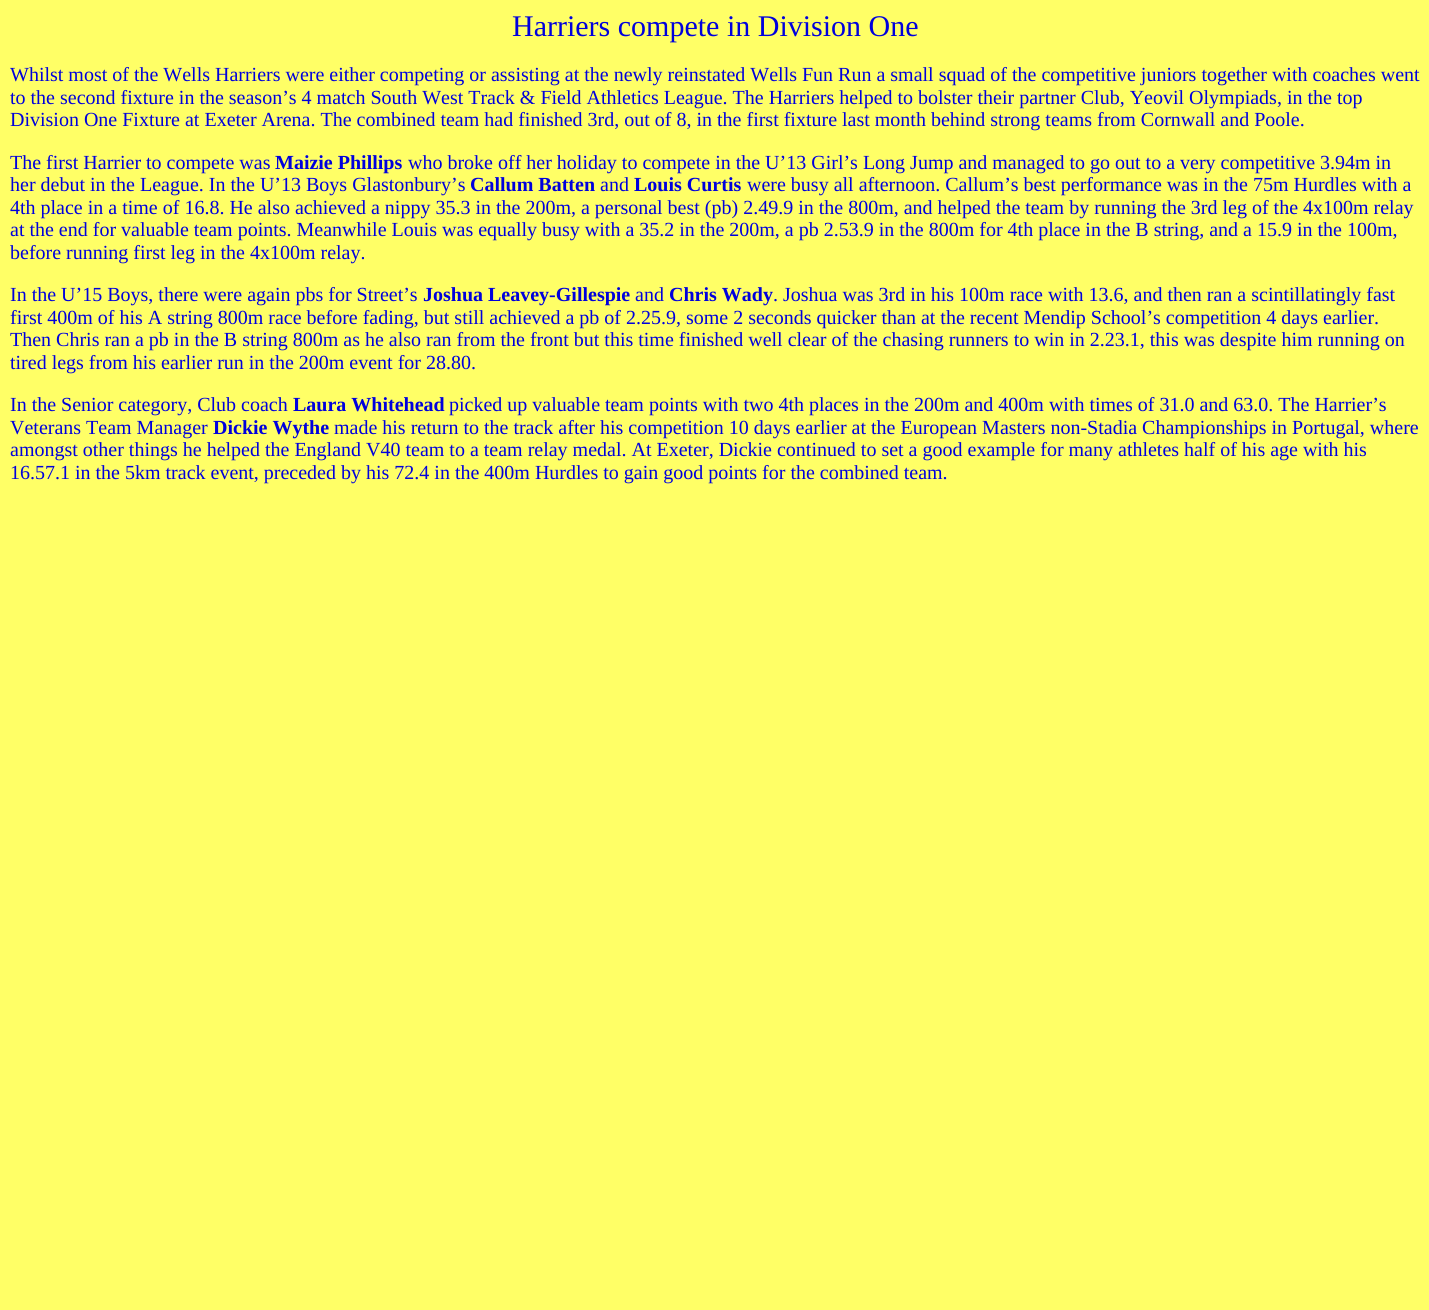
#include <cairo.h>
#include <math.h>
#include <stddef.h>


static void set_color(cairo_t *cr, unsigned color) {
    cairo_set_source_rgb(cr, (color >> 16) / 255.0, (color >> 8 & 255) / 255.0, (color & 255) / 255.0);
}

static void draw_text(cairo_t *cr, double x, double y, const char *s, const char *family, double size, int italic, int bold, unsigned color) {
    cairo_select_font_face(cr, family, italic ? CAIRO_FONT_SLANT_ITALIC : CAIRO_FONT_SLANT_NORMAL,
        bold ? CAIRO_FONT_WEIGHT_BOLD : CAIRO_FONT_WEIGHT_NORMAL);
    cairo_set_font_size(cr, size);
    set_color(cr, color);
    cairo_move_to(cr, x, y);
    cairo_show_text(cr, s);
}

int main(void) {
    cairo_surface_t *surface = cairo_image_surface_create(CAIRO_FORMAT_RGB24, 1429, 1310);
    cairo_t *cr = cairo_create(surface);
    cairo_font_options_t *options = cairo_font_options_create();
    cairo_font_options_set_hint_metrics(options, CAIRO_HINT_METRICS_OFF);
    cairo_font_options_set_hint_style(options, CAIRO_HINT_STYLE_NONE);
    cairo_set_font_options(cr, options);
    cairo_set_miter_limit(cr, 4);
    set_color(cr, 0xFFFF66);
    cairo_paint(cr);
    draw_text(cr, 512, 36, "Harriers compete in Division One", "Liberation Serif", 30, 0, 0, 0x0000DD);
    draw_text(cr, 10, 81, "Whilst most of the Wells Harriers were either competing or assisting at the newly reinstated Wells Fun Run a small squad of the competitive juniors together with coaches went", "Liberation Serif", 20, 0, 0, 0x0000DD);
    draw_text(cr, 10, 104, "to the second fixture in the season’s 4 match South West Track & Field Athletics League. The Harriers helped to bolster their partner Club, Yeovil Olympiads, in the top", "Liberation Serif", 20, 0, 0, 0x0000DD);
    draw_text(cr, 10, 126, "Division One Fixture at Exeter Arena. The combined team had finished 3rd, out of 8, in the first fixture last month behind strong teams from Cornwall and Poole.", "Liberation Serif", 20, 0, 0, 0x0000DD);
    draw_text(cr, 10, 169, "The first Harrier to compete was", "Liberation Serif", 20, 0, 0, 0x0000DD);
    draw_text(cr, 275, 169, "Maizie Phillips", "Liberation Serif", 20, 0, 1, 0x0000DD);
    draw_text(cr, 408, 169, "who broke off her holiday to compete in the U’13 Girl’s Long Jump and managed to go out to a very competitive 3.94m in", "Liberation Serif", 20, 0, 0, 0x0000DD);
    draw_text(cr, 10, 191, "her debut in the League. In the U’13 Boys Glastonbury’s", "Liberation Serif", 20, 0, 0, 0x0000DD);
    draw_text(cr, 470, 191, "Callum Batten", "Liberation Serif", 20, 0, 1, 0x0000DD);
    draw_text(cr, 600, 191, "and", "Liberation Serif", 20, 0, 0, 0x0000DD);
    draw_text(cr, 634, 191, "Louis Curtis", "Liberation Serif", 20, 0, 1, 0x0000DD);
    draw_text(cr, 747, 191, "were busy all afternoon. Callum’s best performance was in the 75m Hurdles with a", "Liberation Serif", 20, 0, 0, 0x0000DD);
    draw_text(cr, 10, 214, "4th place in a time of 16.8. He also achieved a nippy 35.3 in the 200m, a personal best (pb) 2.49.9 in the 800m, and helped the team by running the 3rd leg of the 4x100m relay", "Liberation Serif", 20, 0, 0, 0x0000DD);
    draw_text(cr, 10, 236, "at the end for valuable team points. Meanwhile Louis was equally busy with a 35.2 in the 200m, a pb 2.53.9 in the 800m for 4th place in the B string, and a 15.9 in the 100m,", "Liberation Serif", 20, 0, 0, 0x0000DD);
    draw_text(cr, 10, 259, "before running first leg in the 4x100m relay.", "Liberation Serif", 20, 0, 0, 0x0000DD);
    draw_text(cr, 10, 301, "In the U’15 Boys, there were again pbs for Street’s", "Liberation Serif", 20, 0, 0, 0x0000DD);
    draw_text(cr, 423, 301, "Joshua Leavey-Gillespie", "Liberation Serif", 20, 0, 1, 0x0000DD);
    draw_text(cr, 635, 301, "and", "Liberation Serif", 20, 0, 0, 0x0000DD);
    draw_text(cr, 669, 301, "Chris Wady", "Liberation Serif", 20, 0, 1, 0x0000DD);
    draw_text(cr, 773, 301, ". Joshua was 3rd in his 100m race with 13.6, and then ran a scintillatingly fast", "Liberation Serif", 20, 0, 0, 0x0000DD);
    draw_text(cr, 10, 324, "first 400m of his A string 800m race before fading, but still achieved a pb of 2.25.9, some 2 seconds quicker than at the recent Mendip School’s competition 4 days earlier.", "Liberation Serif", 20, 0, 0, 0x0000DD);
    draw_text(cr, 10, 346, "Then Chris ran a pb in the B string 800m as he also ran from the front but this time finished well clear of the chasing runners to win in 2.23.1, this was despite him running on", "Liberation Serif", 20, 0, 0, 0x0000DD);
    draw_text(cr, 10, 369, "tired legs from his earlier run in the 200m event for 28.80.", "Liberation Serif", 20, 0, 0, 0x0000DD);
    draw_text(cr, 10, 411, "In the Senior category, Club coach", "Liberation Serif", 20, 0, 0, 0x0000DD);
    draw_text(cr, 293, 411, "Laura Whitehead", "Liberation Serif", 20, 0, 1, 0x0000DD);
    draw_text(cr, 449, 411, "picked up valuable team points with two 4th places in the 200m and 400m with times of 31.0 and 63.0. The Harrier’s", "Liberation Serif", 20, 0, 0, 0x0000DD);
    draw_text(cr, 10, 434, "Veterans Team Manager", "Liberation Serif", 20, 0, 0, 0x0000DD);
    draw_text(cr, 213, 434, "Dickie Wythe", "Liberation Serif", 20, 0, 1, 0x0000DD);
    draw_text(cr, 334, 434, "made his return to the track after his competition 10 days earlier at the European Masters non-Stadia Championships in Portugal, where", "Liberation Serif", 20, 0, 0, 0x0000DD);
    draw_text(cr, 10, 456, "amongst other things he helped the England V40 team to a team relay medal. At Exeter, Dickie continued to set a good example for many athletes half of his age with his", "Liberation Serif", 20, 0, 0, 0x0000DD);
    draw_text(cr, 10, 479, "16.57.1 in the 5km track event, preceded by his 72.4 in the 400m Hurdles to gain good points for the combined team.", "Liberation Serif", 20, 0, 0, 0x0000DD);
    cairo_surface_write_to_png(surface, "output.png");
    cairo_font_options_destroy(options);
    cairo_destroy(cr);
    cairo_surface_destroy(surface);
    return 0;
}
